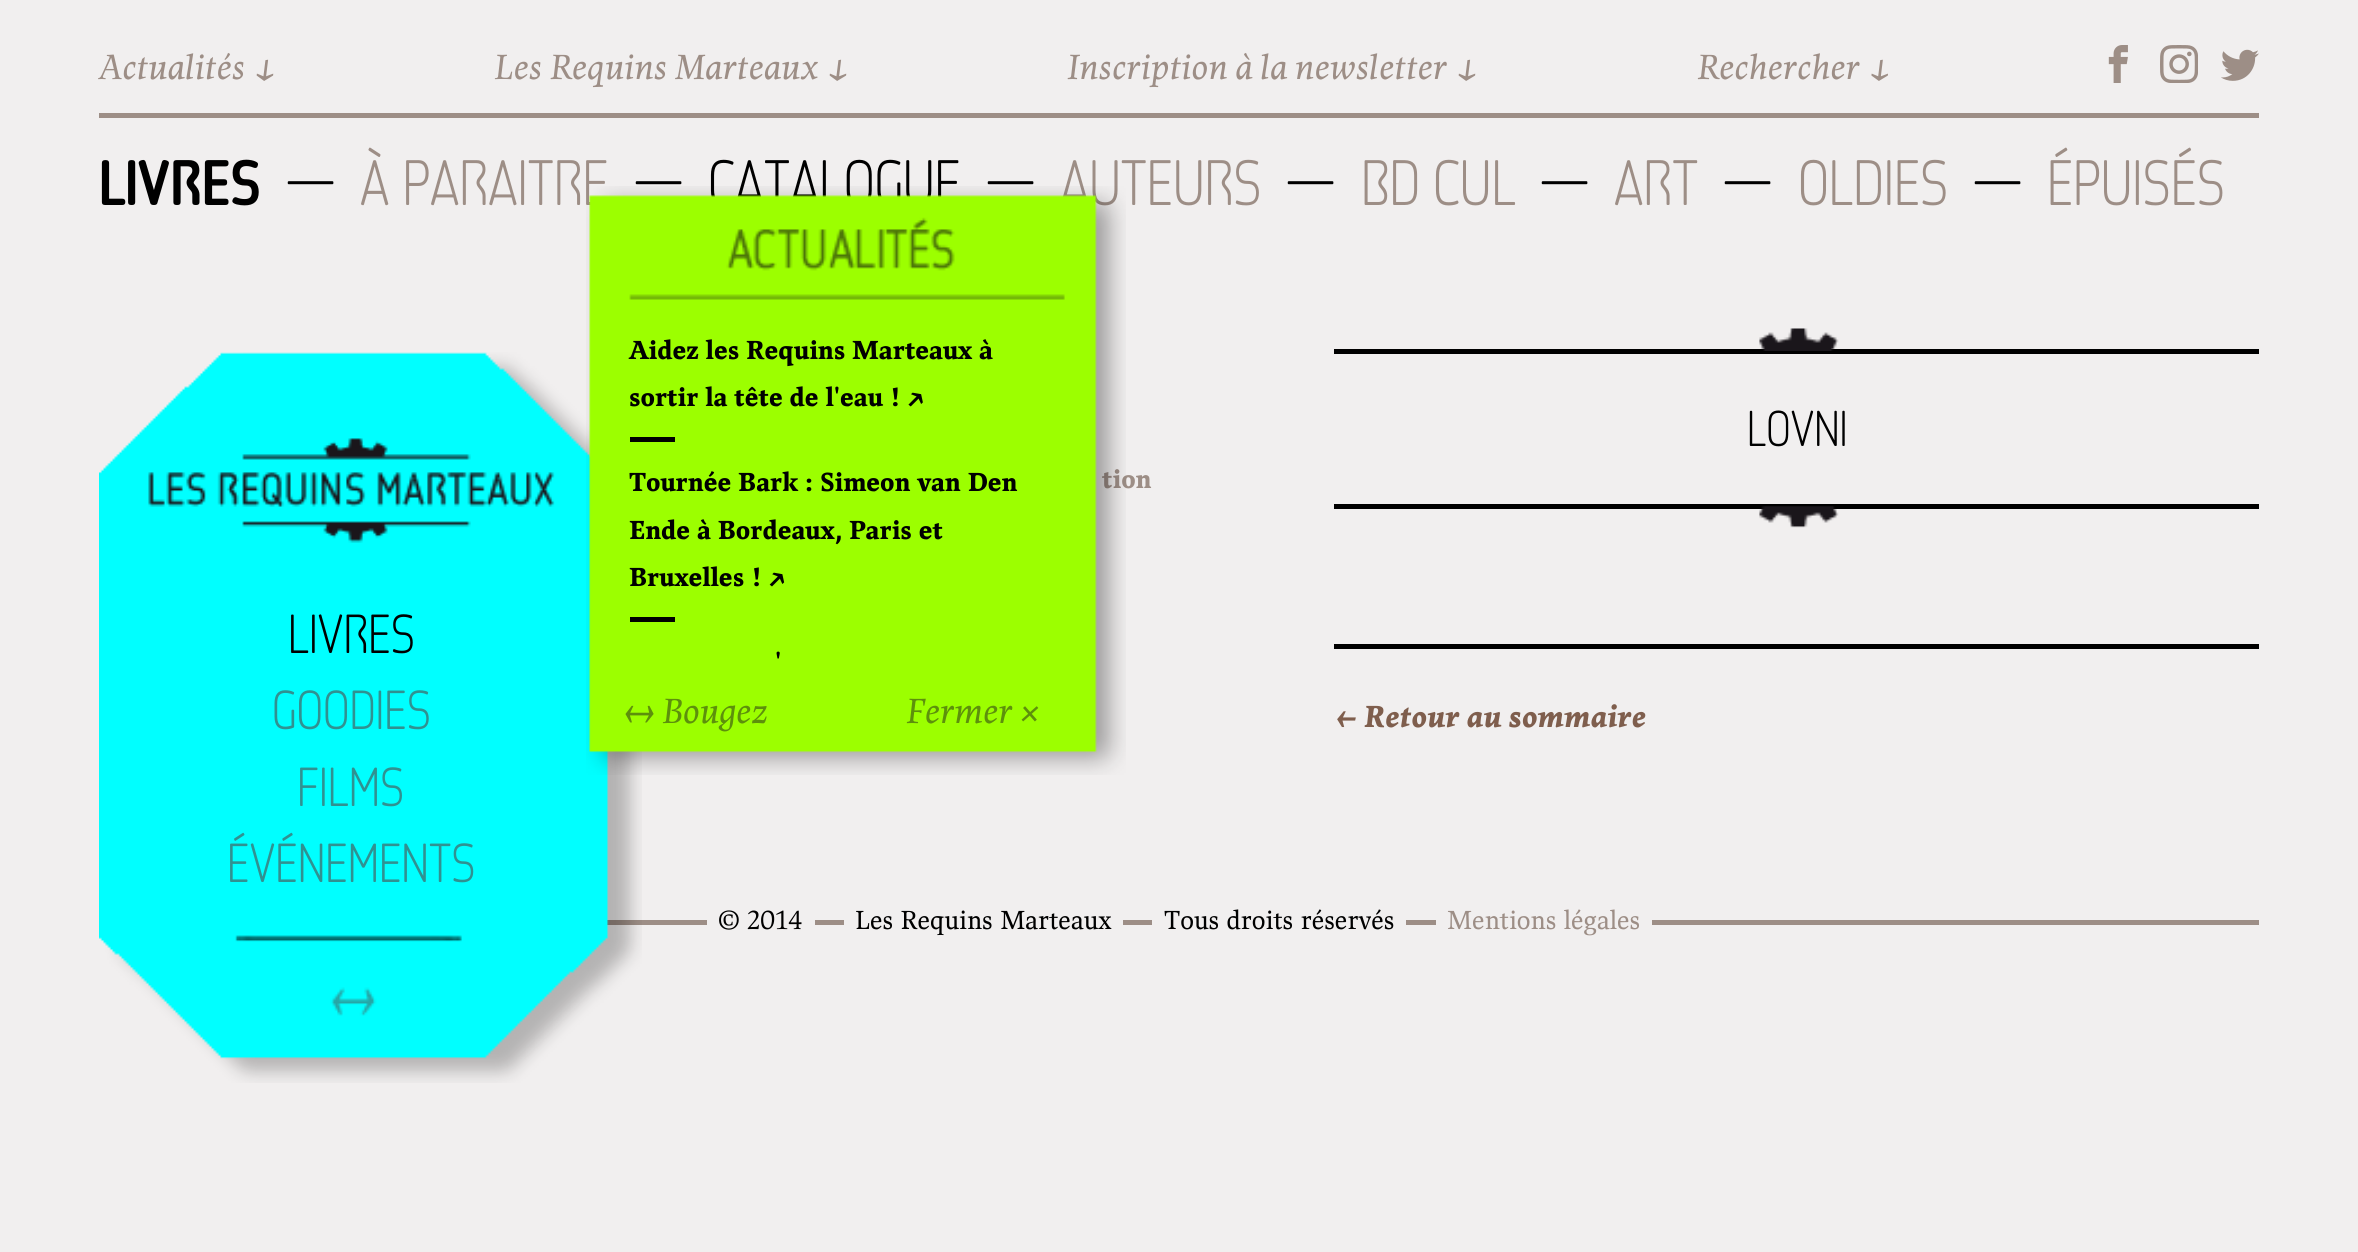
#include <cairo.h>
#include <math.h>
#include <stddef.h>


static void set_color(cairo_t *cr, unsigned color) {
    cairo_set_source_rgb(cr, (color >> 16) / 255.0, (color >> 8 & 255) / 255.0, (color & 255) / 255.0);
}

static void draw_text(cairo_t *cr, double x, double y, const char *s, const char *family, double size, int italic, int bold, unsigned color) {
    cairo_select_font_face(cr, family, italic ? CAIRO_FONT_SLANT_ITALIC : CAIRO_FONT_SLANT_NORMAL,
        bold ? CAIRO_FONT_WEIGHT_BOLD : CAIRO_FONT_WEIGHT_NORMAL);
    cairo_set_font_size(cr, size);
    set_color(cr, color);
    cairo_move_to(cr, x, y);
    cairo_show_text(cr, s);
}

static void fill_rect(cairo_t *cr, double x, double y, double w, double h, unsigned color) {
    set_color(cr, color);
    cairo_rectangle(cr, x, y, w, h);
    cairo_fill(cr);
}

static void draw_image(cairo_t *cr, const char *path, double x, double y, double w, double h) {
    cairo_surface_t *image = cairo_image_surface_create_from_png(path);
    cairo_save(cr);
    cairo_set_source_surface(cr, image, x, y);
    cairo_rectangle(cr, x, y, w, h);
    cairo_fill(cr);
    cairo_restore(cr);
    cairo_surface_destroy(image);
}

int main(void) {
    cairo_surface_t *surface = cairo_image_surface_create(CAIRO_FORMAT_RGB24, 2358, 1252);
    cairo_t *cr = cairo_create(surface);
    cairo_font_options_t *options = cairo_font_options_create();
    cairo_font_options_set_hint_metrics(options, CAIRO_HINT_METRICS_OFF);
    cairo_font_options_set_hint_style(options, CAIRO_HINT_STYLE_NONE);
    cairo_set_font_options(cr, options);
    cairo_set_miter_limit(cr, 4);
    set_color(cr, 0xF1EFEF);
    cairo_paint(cr);
    draw_text(cr, 99, 79, "Actualités ↓", "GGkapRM", 36, 1, 0, 0x9D8E86);
    draw_text(cr, 494, 79, "Les Requins Marteaux ↓", "GGkapRM", 36, 1, 0, 0x9D8E86);
    draw_text(cr, 1067, 79, "Inscription à la newsletter ↓", "GGkapRM", 36, 1, 0, 0x9D8E86);
    draw_text(cr, 1697, 79, "Rechercher ↓", "GGkapRM", 36, 1, 0, 0x9D8E86);
    draw_image(cr, "assets/img1.png", 2108, 45, 20, 38);
    draw_image(cr, "assets/img2.png", 2160, 45, 38, 38);
    draw_image(cr, "assets/img3.png", 2221, 49, 38, 32);
    fill_rect(cr, 99, 113, 2160, 5, 0x9D8E86);
    draw_text(cr, 99, 205, "LIVRES", "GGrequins", 63, 0, 0, 0x000000);
    draw_text(cr, 286, 205, "—", "GGrequins Thin", 63, 0, 0, 0x000000);
    draw_text(cr, 360, 205, "À PARAITRE", "GGrequins Thin", 63, 0, 0, 0x9D8E86);
    draw_text(cr, 634, 205, "—", "GGrequins Thin", 63, 0, 0, 0x000000);
    draw_text(cr, 708, 205, "CATALOGUE", "GGrequins Thin", 63, 0, 0, 0x000000);
    draw_text(cr, 986, 205, "—", "GGrequins Thin", 63, 0, 0, 0x000000);
    draw_text(cr, 1060, 205, "AUTEURS", "GGrequins Thin", 63, 0, 0, 0x9D8E86);
    draw_text(cr, 1286, 205, "—", "GGrequins Thin", 63, 0, 0, 0x000000);
    draw_text(cr, 1361, 205, "BD CUL", "GGrequins Thin", 63, 0, 0, 0x9D8E86);
    draw_text(cr, 1540, 205, "—", "GGrequins Thin", 63, 0, 0, 0x000000);
    draw_text(cr, 1614, 205, "ART", "GGrequins Thin", 63, 0, 0, 0x9D8E86);
    draw_text(cr, 1723, 205, "—", "GGrequins Thin", 63, 0, 0, 0x000000);
    draw_text(cr, 1798, 205, "OLDIES", "GGrequins Thin", 63, 0, 0, 0x9D8E86);
    draw_text(cr, 1973, 205, "—", "GGrequins Thin", 63, 0, 0, 0x000000);
    draw_text(cr, 2047, 205, "ÉPUISÉS", "GGrequins Thin", 63, 0, 0, 0x9D8E86);
    fill_rect(cr, 607, 920, 1652, 5, 0x9D8E86);
    draw_image(cr, "assets/img4.png", 99, 352, 543, 731);
    draw_text(cr, 288, 653, "LIVRES", "GGrequins Thin", 54, 0, 0, 0x000000);
    draw_text(cr, 272, 729, "GOODIES", "GGrequins Thin", 54, 0, 0, 0x309191);
    draw_text(cr, 297, 806, "FILMS", "GGrequins Thin", 54, 0, 0, 0x309191);
    draw_text(cr, 227, 882, "ÉVÉNEMENTS", "GGrequins Thin", 54, 0, 0, 0x309191);
    fill_rect(cr, 1334, 349, 925, 5, 0x000000);
    fill_rect(cr, 1334, 504, 925, 5, 0x000000);
    draw_image(cr, "assets/img5.png", 1759, 328, 80, 23);
    draw_text(cr, 1747, 446, "LOVNI", "GGrequins Thin", 49.5, 0, 0, 0x000000);
    draw_image(cr, "assets/img6.png", 1759, 506, 80, 22);
    draw_text(cr, 1102, 488, "tion", "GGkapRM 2", 27, 0, 0, 0x9D8E86);
    fill_rect(cr, 1334, 644, 925, 5, 0x000000);
    draw_text(cr, 1335, 727, "← Retour au sommaire", "GGkapRM 2", 31.5, 1, 0, 0x7F5E4D);
    fill_rect(cr, 707, 920, 108, 5, 0xF1EFEF);
    draw_text(cr, 718, 929, "© 2014", "GGkapRM", 27, 0, 0, 0x000000);
    fill_rect(cr, 844, 920, 279, 5, 0xF1EFEF);
    draw_text(cr, 855, 929, "Les Requins Marteaux", "GGkapRM", 27, 0, 0, 0x000000);
    fill_rect(cr, 1152, 920, 254, 5, 0xF1EFEF);
    draw_text(cr, 1164, 929, "Tous droits réservés", "GGkapRM", 27, 0, 0, 0x000000);
    fill_rect(cr, 1436, 920, 216, 5, 0xF1EFEF);
    draw_text(cr, 1447, 929, "Mentions légales", "GGkapRM", 27, 0, 0, 0x9D8E86);
    draw_image(cr, "assets/img7.png", 586, 186, 540, 589);
    draw_text(cr, 629, 359, "Aidez les Requins Marteaux à", "GGkapRM 2", 27, 0, 0, 0x000000);
    draw_text(cr, 629, 406, "sortir la tête de l'eau ! ↗", "GGkapRM 2", 27, 0, 0, 0x000000);
    fill_rect(cr, 630, 437, 45, 5, 0x000000);
    draw_text(cr, 629, 491, "Tournée Bark : Simeon van Den", "GGkapRM 2", 27, 0, 0, 0x000000);
    draw_text(cr, 629, 539, "Ende à Bordeaux, Paris et", "GGkapRM 2", 27, 0, 0, 0x000000);
    draw_text(cr, 629, 586, "Bruxelles ! ↗", "GGkapRM 2", 27, 0, 0, 0x000000);
    fill_rect(cr, 630, 617, 45, 5, 0x000000);
    draw_text(cr, 775, 671, "'", "GGkapRM 2", 27, 0, 0, 0x000000);
    draw_text(cr, 623, 723, "↔ Bougez", "GGkapRM", 36, 1, 0, 0x5D900C);
    draw_text(cr, 906, 723, "Fermer ×", "GGkapRM", 36, 1, 0, 0x5D900C);
    cairo_surface_write_to_png(surface, "output.png");
    cairo_font_options_destroy(options);
    cairo_destroy(cr);
    cairo_surface_destroy(surface);
    return 0;
}
